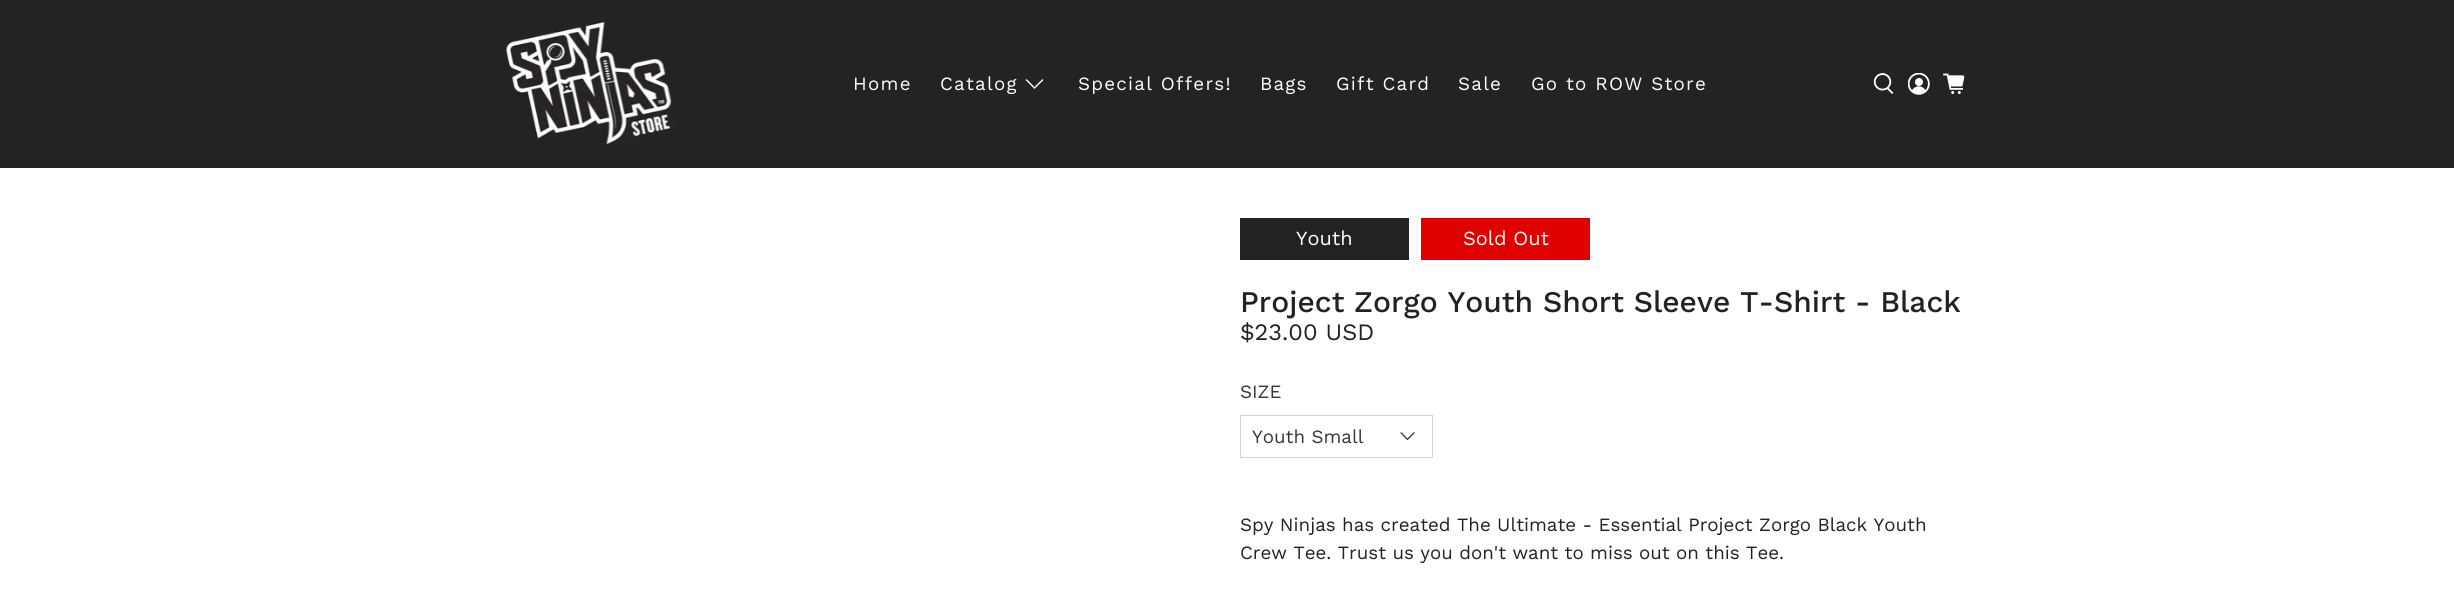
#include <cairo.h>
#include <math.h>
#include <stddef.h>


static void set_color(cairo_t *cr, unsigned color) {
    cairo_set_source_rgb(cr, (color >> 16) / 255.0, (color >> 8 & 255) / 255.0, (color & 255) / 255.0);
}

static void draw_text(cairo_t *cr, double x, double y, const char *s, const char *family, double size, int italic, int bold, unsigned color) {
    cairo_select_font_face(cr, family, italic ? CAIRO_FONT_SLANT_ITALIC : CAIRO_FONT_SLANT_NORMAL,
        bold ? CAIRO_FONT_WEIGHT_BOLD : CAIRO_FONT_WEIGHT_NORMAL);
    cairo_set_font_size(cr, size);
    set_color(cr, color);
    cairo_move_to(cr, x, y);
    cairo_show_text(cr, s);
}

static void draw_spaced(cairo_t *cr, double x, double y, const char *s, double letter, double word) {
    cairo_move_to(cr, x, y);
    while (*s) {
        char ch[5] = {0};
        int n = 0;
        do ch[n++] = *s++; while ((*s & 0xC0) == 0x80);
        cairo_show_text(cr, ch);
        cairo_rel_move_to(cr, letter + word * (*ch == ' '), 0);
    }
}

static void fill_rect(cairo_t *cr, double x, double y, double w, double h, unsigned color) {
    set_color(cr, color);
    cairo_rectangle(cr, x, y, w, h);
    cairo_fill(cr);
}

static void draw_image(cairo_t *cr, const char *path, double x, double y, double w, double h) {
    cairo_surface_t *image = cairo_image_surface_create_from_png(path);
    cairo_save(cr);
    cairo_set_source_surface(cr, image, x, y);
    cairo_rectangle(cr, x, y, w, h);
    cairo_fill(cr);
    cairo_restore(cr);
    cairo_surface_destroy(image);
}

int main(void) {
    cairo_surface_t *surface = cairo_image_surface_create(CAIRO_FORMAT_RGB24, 2454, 593);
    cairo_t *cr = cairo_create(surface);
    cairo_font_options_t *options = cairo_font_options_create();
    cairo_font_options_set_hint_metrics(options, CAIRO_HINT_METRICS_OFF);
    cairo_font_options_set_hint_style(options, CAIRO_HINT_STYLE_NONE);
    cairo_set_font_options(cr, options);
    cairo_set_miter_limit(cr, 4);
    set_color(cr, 0xFFFFFF);
    cairo_paint(cr);
    fill_rect(cr, 0, 0, 2454, 168, 0x232323);
    draw_image(cr, "assets/img1.png", 504, 21, 173, 127);
    cairo_select_font_face(cr, "Work Sans", CAIRO_FONT_SLANT_NORMAL, CAIRO_FONT_WEIGHT_NORMAL);
    cairo_set_font_size(cr, 18.75);
    set_color(cr, 0xFFFFFF);
    draw_spaced(cr, 853, 90, "Home", 1.25, 0);
    draw_spaced(cr, 940, 90, "Catalog", 1.25, 0);
    cairo_new_path(cr);
    cairo_move_to(cr, 1034.5, 89);
    cairo_line_to(cr, 1025.5, 80);
    cairo_line_to(cr, 1026.5, 79);
    cairo_line_to(cr, 1034.5, 87);
    cairo_line_to(cr, 1042.5, 79);
    cairo_line_to(cr, 1043.5, 80);
    cairo_close_path(cr);
    cairo_fill(cr);
    draw_spaced(cr, 1078, 90, "Special Offers!", 1.25, 0);
    draw_spaced(cr, 1260, 90, "Bags", 1.25, 0);
    draw_spaced(cr, 1336, 90, "Gift Card", 1.25, 0);
    draw_spaced(cr, 1458, 90, "Sale", 1.25, 0);
    draw_spaced(cr, 1531, 90, "Go to ROW Store", 1.25, 0);
    draw_image(cr, "assets/img2.png", 1873, 73, 21, 21);
    draw_image(cr, "assets/img3.png", 1908, 73, 22, 22);
    draw_image(cr, "assets/img4.png", 1943, 73, 22, 21);
    fill_rect(cr, 1240, 218, 169, 42, 0x222222);
    draw_text(cr, 1296, 245, "Youth", "Work Sans", 20, 0, 0, 0xFFFFFF);
    fill_rect(cr, 1421, 218, 169, 42, 0xE10000);
    draw_text(cr, 1463, 245, "Sold Out", "Work Sans", 20, 0, 0, 0xFFFFFF);
    draw_text(cr, 1240, 312, "Project Zorgo Youth Short Sleeve T-Shirt - Black", "Work Sans Medium", 30, 0, 0, 0x222222);
    draw_text(cr, 1240, 340, "$23.00 USD", "Work Sans", 23.5, 0, 0, 0x222222);
    draw_text(cr, 1240, 398, "SIZE", "Work Sans", 18.75, 0, 0, 0x363636);
    cairo_rectangle(cr, 1240.5, 415.5, 192, 42);
    set_color(cr, 0xD3D3D3);
    cairo_set_line_width(cr, 1);
    cairo_stroke(cr);
    draw_text(cr, 1252, 443, "Youth Small", "Work Sans", 18.75, 0, 0, 0x363636);
    draw_image(cr, "assets/img5.png", 1400, 432, 15, 9);
    draw_text(cr, 1240, 531, "Spy Ninjas has created The Ultimate - Essential Project Zorgo Black Youth", "Work Sans", 18.75, 0, 0, 0x222222);
    draw_text(cr, 1240, 559, "Crew Tee. Trust us you don't want to miss out on this Tee.", "Work Sans", 18.75, 0, 0, 0x222222);
    cairo_surface_write_to_png(surface, "output.png");
    cairo_font_options_destroy(options);
    cairo_destroy(cr);
    cairo_surface_destroy(surface);
    return 0;
}
